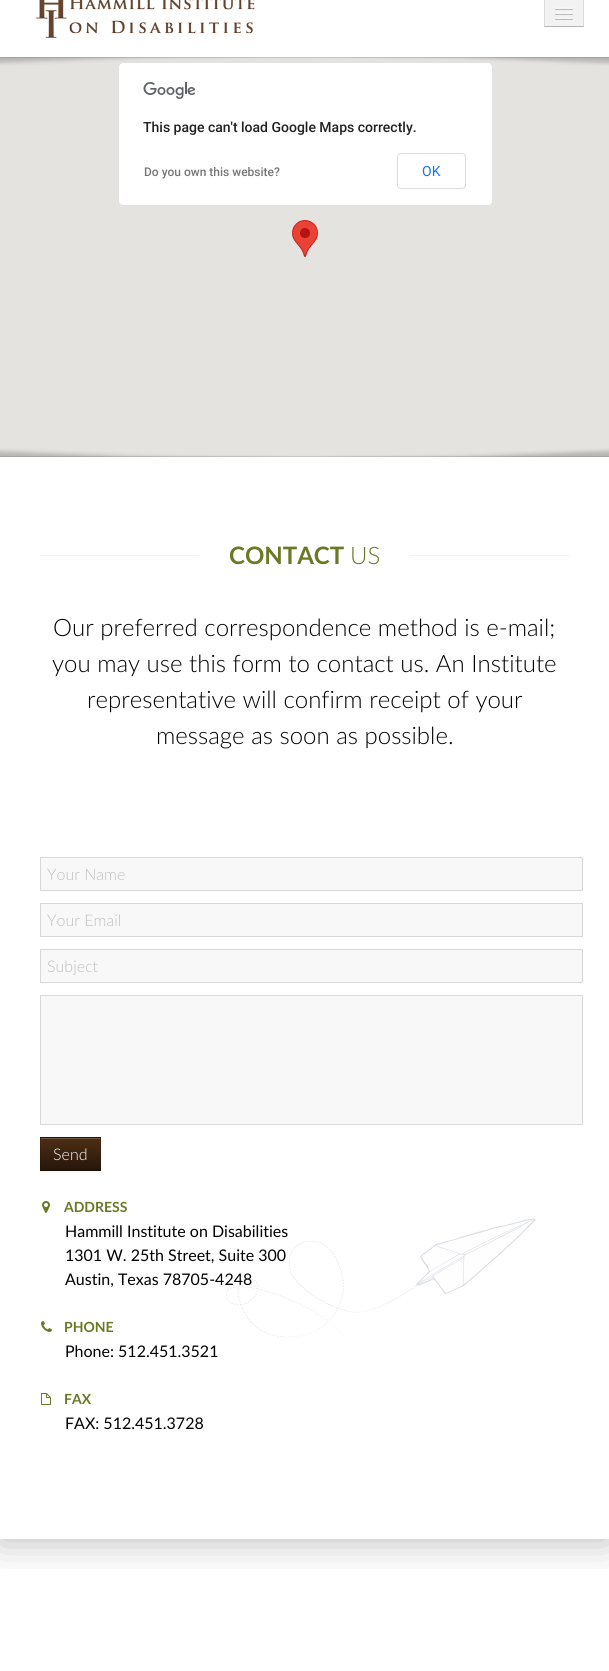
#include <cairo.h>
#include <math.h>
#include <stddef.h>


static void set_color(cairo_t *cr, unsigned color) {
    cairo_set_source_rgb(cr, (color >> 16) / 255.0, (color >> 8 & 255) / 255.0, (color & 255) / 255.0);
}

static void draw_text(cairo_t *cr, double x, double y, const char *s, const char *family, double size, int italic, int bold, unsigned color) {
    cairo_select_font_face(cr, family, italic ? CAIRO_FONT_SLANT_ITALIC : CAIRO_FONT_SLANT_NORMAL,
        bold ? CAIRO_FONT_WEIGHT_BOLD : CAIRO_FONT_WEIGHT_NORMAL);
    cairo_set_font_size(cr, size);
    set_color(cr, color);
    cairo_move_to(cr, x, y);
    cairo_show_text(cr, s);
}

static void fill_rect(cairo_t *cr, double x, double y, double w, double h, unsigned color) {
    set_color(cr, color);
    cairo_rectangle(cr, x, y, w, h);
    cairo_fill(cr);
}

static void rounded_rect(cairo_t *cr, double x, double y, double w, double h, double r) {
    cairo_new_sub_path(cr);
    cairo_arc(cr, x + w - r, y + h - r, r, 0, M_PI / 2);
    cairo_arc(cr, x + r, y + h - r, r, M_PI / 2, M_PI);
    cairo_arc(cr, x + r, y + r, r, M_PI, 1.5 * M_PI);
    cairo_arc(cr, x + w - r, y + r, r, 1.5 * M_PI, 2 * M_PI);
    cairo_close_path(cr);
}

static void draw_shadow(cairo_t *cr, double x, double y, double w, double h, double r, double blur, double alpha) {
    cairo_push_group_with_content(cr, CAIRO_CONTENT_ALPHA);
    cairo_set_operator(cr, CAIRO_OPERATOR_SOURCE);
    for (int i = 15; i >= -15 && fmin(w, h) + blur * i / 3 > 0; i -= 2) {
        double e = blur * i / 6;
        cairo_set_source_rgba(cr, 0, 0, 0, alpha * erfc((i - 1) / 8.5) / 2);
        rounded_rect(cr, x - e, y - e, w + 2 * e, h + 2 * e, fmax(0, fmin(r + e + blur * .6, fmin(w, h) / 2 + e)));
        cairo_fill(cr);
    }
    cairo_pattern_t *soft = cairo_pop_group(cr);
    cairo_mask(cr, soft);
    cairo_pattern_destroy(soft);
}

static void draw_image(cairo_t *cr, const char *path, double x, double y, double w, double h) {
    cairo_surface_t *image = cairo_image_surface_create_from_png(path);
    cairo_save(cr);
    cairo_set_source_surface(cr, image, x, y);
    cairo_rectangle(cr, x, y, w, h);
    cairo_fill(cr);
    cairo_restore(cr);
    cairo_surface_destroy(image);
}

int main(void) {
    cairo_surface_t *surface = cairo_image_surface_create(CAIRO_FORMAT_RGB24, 609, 1671);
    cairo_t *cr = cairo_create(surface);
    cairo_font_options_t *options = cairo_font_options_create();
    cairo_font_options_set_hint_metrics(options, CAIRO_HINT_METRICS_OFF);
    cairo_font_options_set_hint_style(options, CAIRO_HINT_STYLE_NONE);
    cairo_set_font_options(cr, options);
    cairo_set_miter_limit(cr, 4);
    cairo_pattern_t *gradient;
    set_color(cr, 0xFFFFFF);
    cairo_paint(cr);
    cairo_save(cr);
    cairo_rectangle(cr, 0, 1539, 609, 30);
    cairo_clip(cr);
    set_color(cr, 0x000000);
    draw_shadow(cr, 0, -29, 609, 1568, 0, 20, 0.3);
    cairo_restore(cr);
    draw_image(cr, "assets/img1.png", 35, 0, 220, 38);
    fill_rect(cr, 544, 0, 40, 27, 0xF2F2F2);
    set_color(cr, 0xDADADA);
    cairo_new_path(cr);
    cairo_move_to(cr, 584, -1);
    cairo_line_to(cr, 584, 27);
    cairo_line_to(cr, 583, 26);
    cairo_line_to(cr, 583, 0);
    cairo_close_path(cr);
    cairo_fill(cr);
    cairo_set_source_rgba(cr, 0, 0, 0, 0.25);
    cairo_new_path(cr);
    cairo_move_to(cr, 584, 27);
    cairo_line_to(cr, 544, 27);
    cairo_line_to(cr, 545, 26);
    cairo_line_to(cr, 583, 26);
    cairo_close_path(cr);
    cairo_fill(cr);
    cairo_set_source_rgba(cr, 0, 0, 0, 0.1);
    cairo_new_path(cr);
    cairo_move_to(cr, 544, 27);
    cairo_line_to(cr, 544, -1);
    cairo_line_to(cr, 545, 0);
    cairo_line_to(cr, 545, 26);
    cairo_close_path(cr);
    cairo_fill(cr);
    set_color(cr, 0xB6B6B6);
    cairo_new_path(cr);
    cairo_move_to(cr, 555, 8.5);
    cairo_curve_to(cr, 554, 10.5, 558.5, 10, 558.5, 10);
    cairo_line_to(cr, 569.5, 10);
    cairo_curve_to(cr, 569.5, 10, 574, 10.5, 573, 8.5);
    cairo_curve_to(cr, 572, 9.5, 565.5, 9, 564, 9);
    cairo_curve_to(cr, 562.5, 9, 556, 9.5, 555, 8.5);
    cairo_close_path(cr);
    cairo_fill(cr);
    set_color(cr, 0xF5F5F5);
    rounded_rect(cr, 555, 7, 18, 2, 1);
    cairo_fill(cr);
    set_color(cr, 0xB6B6B6);
    cairo_new_path(cr);
    cairo_move_to(cr, 555, 13.5);
    cairo_curve_to(cr, 554, 15.5, 558.5, 15, 558.5, 15);
    cairo_line_to(cr, 569.5, 15);
    cairo_curve_to(cr, 569.5, 15, 574, 15.5, 573, 13.5);
    cairo_curve_to(cr, 572, 14.5, 565.5, 14, 564, 14);
    cairo_curve_to(cr, 562.5, 14, 556, 14.5, 555, 13.5);
    cairo_close_path(cr);
    cairo_fill(cr);
    set_color(cr, 0xF5F5F5);
    rounded_rect(cr, 555, 12, 18, 2, 1);
    cairo_fill(cr);
    set_color(cr, 0xB6B6B6);
    cairo_new_path(cr);
    cairo_move_to(cr, 555, 18.5);
    cairo_curve_to(cr, 554, 20.5, 558.5, 20, 558.5, 20);
    cairo_line_to(cr, 569.5, 20);
    cairo_curve_to(cr, 569.5, 20, 574, 20.5, 573, 18.5);
    cairo_curve_to(cr, 572, 19.5, 565.5, 19, 564, 19);
    cairo_curve_to(cr, 562.5, 19, 556, 19.5, 555, 18.5);
    cairo_close_path(cr);
    cairo_fill(cr);
    set_color(cr, 0xF5F5F5);
    rounded_rect(cr, 555, 17, 18, 2, 1);
    cairo_fill(cr);
    fill_rect(cr, 0, 57, 609, 400, 0xE5E3DF);
    set_color(cr, 0xFFFFFF);
    rounded_rect(cr, 118, 62, 375, 144, 5);
    cairo_fill(cr);
    rounded_rect(cr, 118.5, 62.5, 374, 143, 4.5);
    cairo_set_source_rgba(cr, 0, 0, 0, 0.12);
    cairo_set_line_width(cr, 1);
    cairo_stroke(cr);
    draw_image(cr, "assets/img2.png", 0, 57, 609, 9);
    draw_image(cr, "assets/img3.png", 292, 220, 26, 37);
    draw_image(cr, "assets/img4.png", 143, 82, 52, 17);
    draw_text(cr, 143, 132, "This page can't load Google Maps correctly.", "Roboto Medium", 14, 0, 0, 0x212121);
    draw_text(cr, 144, 176, "Do you own this website?", "Roboto Medium", 12, 0, 0, 0x757575);
    rounded_rect(cr, 397.5, 153.5, 68, 35, 3.5);
    set_color(cr, 0xDADCE0);
    cairo_stroke(cr);
    draw_text(cr, 422, 176, "OK", "Roboto", 14, 0, 0, 0x1A73E8);
    draw_image(cr, "assets/img5.png", 0, 448, 609, 9);
    fill_rect(cr, 40, 555, 159, 1, 0xF2F2F4);
    draw_text(cr, 229, 564, "CONTACT", "Lato", 24, 0, 1, 0x6B7825);
    draw_text(cr, 350, 564, "US", "Lato Light", 24, 0, 0, 0x6B7825);
    fill_rect(cr, 410, 555, 159, 1, 0xF2F2F4);
    draw_text(cr, 53, 636, "Our preferred correspondence method is e-mail;", "Lato Light", 24, 0, 0, 0x000000);
    draw_text(cr, 52, 672, "you may use this form to contact us. An Institute", "Lato Light", 24, 0, 0, 0x000000);
    draw_text(cr, 87, 708, "representative will confirm receipt of your", "Lato Light", 24, 0, 0, 0x000000);
    draw_text(cr, 156, 744, "message as soon as possible.", "Lato Light", 24, 0, 0, 0x000000);
    set_color(cr, 0xF8F8F9);
    cairo_rectangle(cr, 40.5, 857.5, 542, 33);
    cairo_fill_preserve(cr);
    set_color(cr, 0xD8D8D8);
    cairo_stroke(cr);
    draw_text(cr, 47, 880, "Your Name", "Lato Light", 16, 0, 0, 0xBFBFBF);
    set_color(cr, 0xF8F8F9);
    cairo_rectangle(cr, 40.5, 903.5, 542, 33);
    cairo_fill_preserve(cr);
    set_color(cr, 0xD8D8D8);
    cairo_stroke(cr);
    draw_text(cr, 47, 926, "Your Email", "Lato Light", 16, 0, 0, 0xBFBFBF);
    set_color(cr, 0xF8F8F9);
    cairo_rectangle(cr, 40.5, 949.5, 542, 33);
    cairo_fill_preserve(cr);
    set_color(cr, 0xD8D8D8);
    cairo_stroke(cr);
    draw_text(cr, 47, 972, "Subject", "Lato Light", 16, 0, 0, 0xBFBFBF);
    set_color(cr, 0xF8F8F9);
    cairo_rectangle(cr, 40.5, 995.5, 542, 129);
    cairo_fill_preserve(cr);
    set_color(cr, 0xD8D8D8);
    cairo_stroke(cr);
    set_color(cr, 0x000000);
    draw_shadow(cr, 40, 1138, 61, 34, 0, 1, 0.05);
    fill_rect(cr, 40, 1137, 61, 34, 0x26160A);
    gradient = cairo_pattern_create_linear(71, 1138, 71, 1170);
    cairo_pattern_add_color_stop_rgba(gradient, 0, 0.306, 0.18, 0.082, 1);
    cairo_pattern_add_color_stop_rgba(gradient, 1, 0.149, 0.086, 0.039, 1);
    cairo_set_source(cr, gradient);
    cairo_pattern_destroy(gradient);
    cairo_rectangle(cr, 40, 1138, 61, 30);
    cairo_fill(cr);
    fill_rect(cr, 41, 1138, 59, 1, 0x715844);
    set_color(cr, 0x221409);
    cairo_new_path(cr);
    cairo_move_to(cr, 40, 1137);
    cairo_line_to(cr, 101, 1137);
    cairo_line_to(cr, 100, 1138);
    cairo_line_to(cr, 41, 1138);
    cairo_close_path(cr);
    cairo_fill(cr);
    cairo_set_source_rgba(cr, 0, 0, 0, 0.1);
    cairo_new_path(cr);
    cairo_move_to(cr, 101, 1137);
    cairo_line_to(cr, 101, 1171);
    cairo_line_to(cr, 100, 1170);
    cairo_line_to(cr, 100, 1138);
    cairo_close_path(cr);
    cairo_fill(cr);
    set_color(cr, 0x1C1007);
    cairo_new_path(cr);
    cairo_move_to(cr, 101, 1171);
    cairo_line_to(cr, 40, 1171);
    cairo_line_to(cr, 41, 1170);
    cairo_line_to(cr, 100, 1170);
    cairo_close_path(cr);
    cairo_fill(cr);
    cairo_set_source_rgba(cr, 0, 0, 0, 0.1);
    cairo_new_path(cr);
    cairo_move_to(cr, 40, 1171);
    cairo_line_to(cr, 40, 1137);
    cairo_line_to(cr, 41, 1138);
    cairo_line_to(cr, 41, 1170);
    cairo_close_path(cr);
    cairo_fill(cr);
    draw_text(cr, 53, 1160, "Send", "Lato Light", 16, 0, 0, 0xFFFFFF);
    draw_image(cr, "assets/img6.png", 226, 1218, 310, 121);
    draw_image(cr, "assets/img7.png", 42, 1201, 8, 12);
    draw_text(cr, 64, 1212, "ADDRESS", "Lato", 14, 0, 1, 0x6B7825);
    draw_text(cr, 65, 1237, "Hammill Institute on Disabilities", "Lato", 16, 0, 0, 0x000000);
    draw_text(cr, 65, 1261, "1301 W. 25th Street, Suite 300", "Lato", 16, 0, 0, 0x000000);
    draw_text(cr, 65, 1285, "Austin, Texas 78705-4248", "Lato", 16, 0, 0, 0x000000);
    draw_image(cr, "assets/img8.png", 41, 1321, 11, 11);
    draw_text(cr, 64, 1332, "PHONE", "Lato", 14, 0, 1, 0x6B7825);
    draw_text(cr, 65, 1357, "Phone: 512.451.3521", "Lato", 16, 0, 0, 0x000000);
    draw_image(cr, "assets/img9.png", 41, 1393, 10, 12);
    draw_text(cr, 64, 1404, "FAX", "Lato", 14, 0, 1, 0x6B7825);
    draw_text(cr, 65, 1429, "FAX: 512.451.3728", "Lato", 16, 0, 0, 0x000000);
    cairo_surface_write_to_png(surface, "output.png");
    cairo_font_options_destroy(options);
    cairo_destroy(cr);
    cairo_surface_destroy(surface);
    return 0;
}
